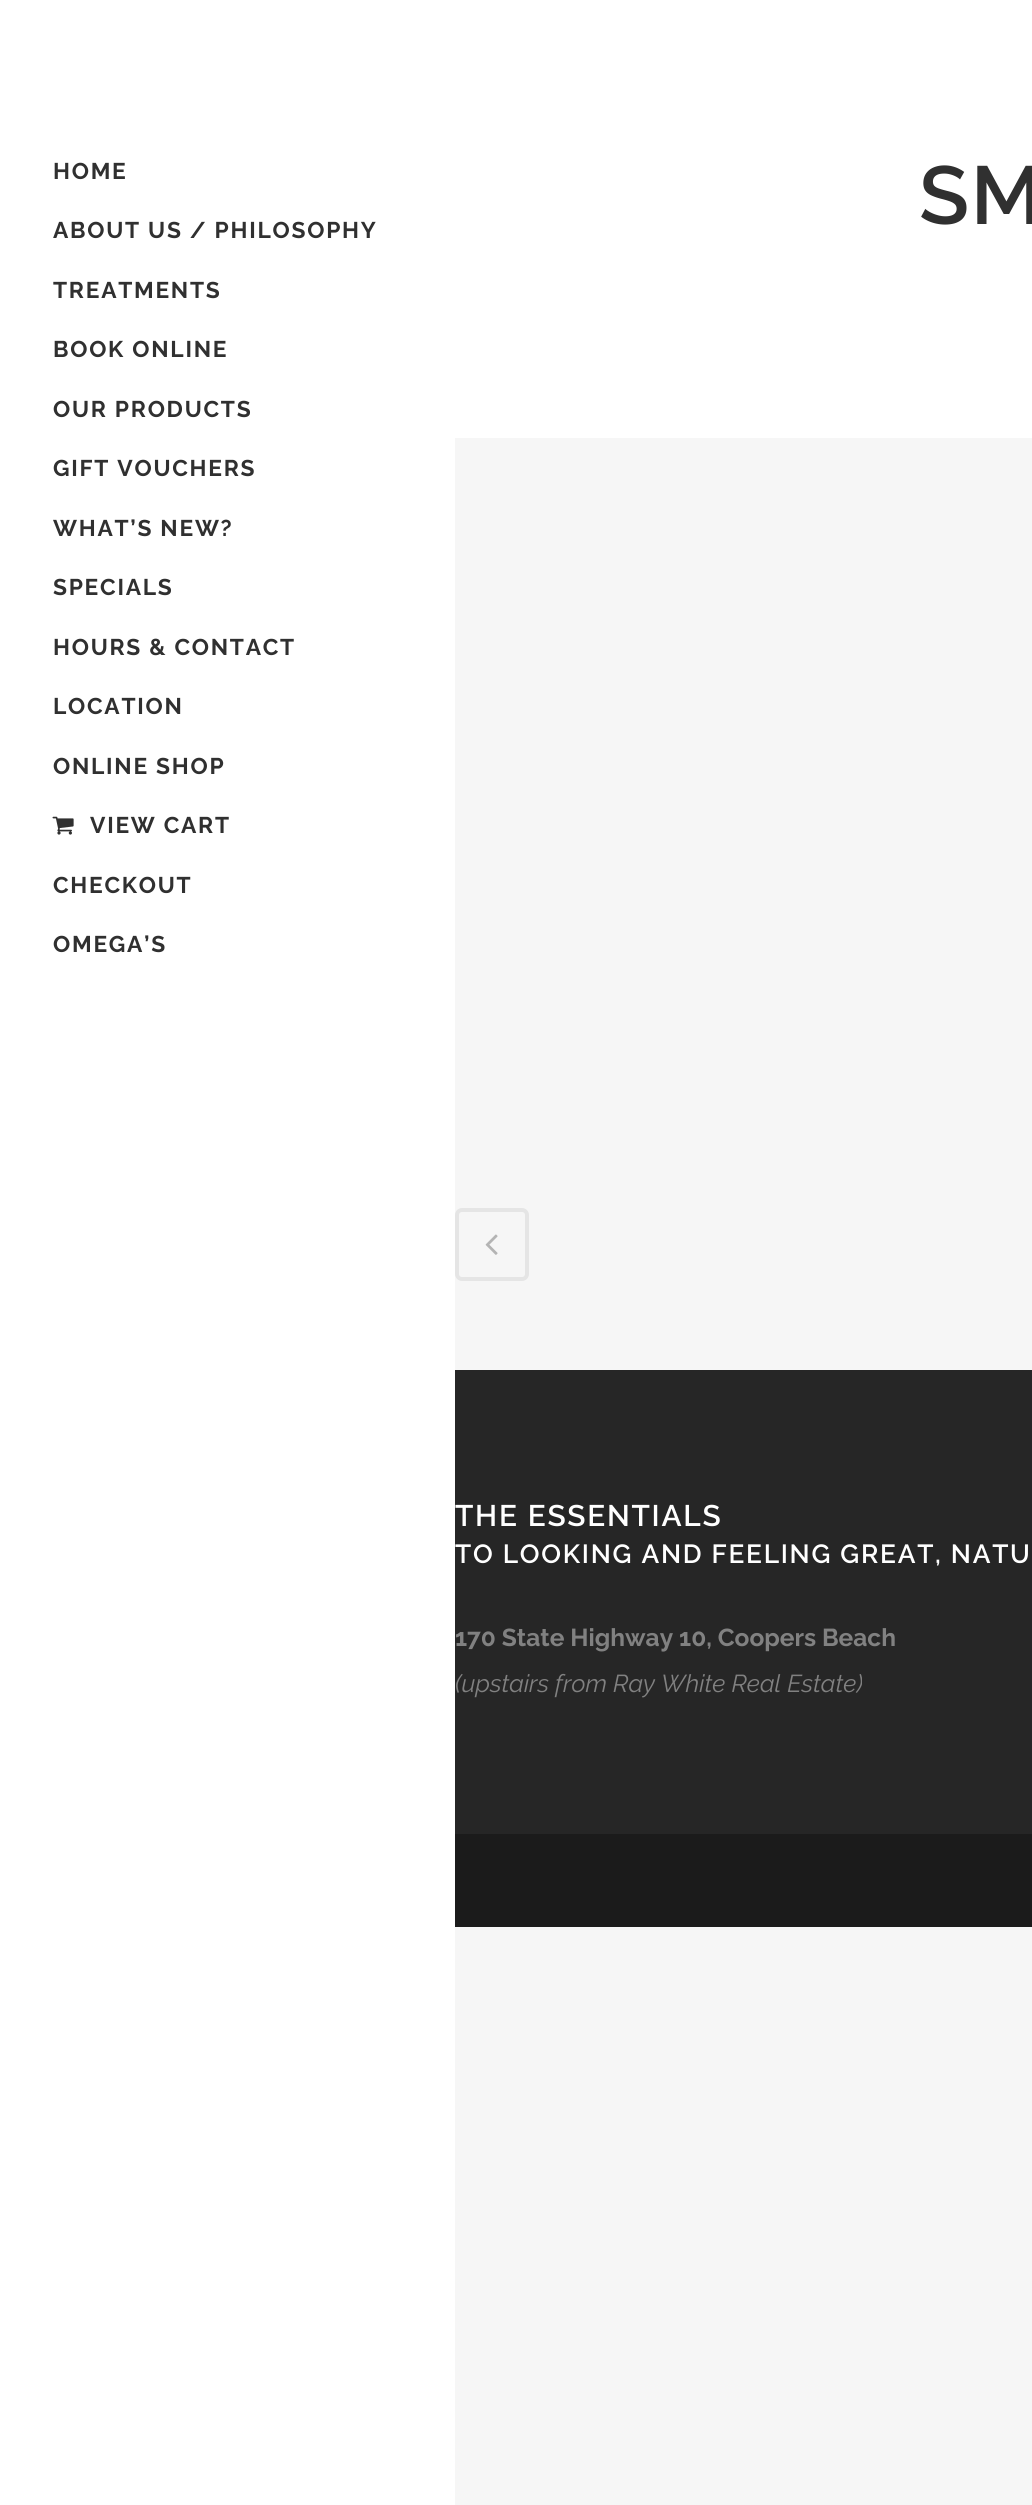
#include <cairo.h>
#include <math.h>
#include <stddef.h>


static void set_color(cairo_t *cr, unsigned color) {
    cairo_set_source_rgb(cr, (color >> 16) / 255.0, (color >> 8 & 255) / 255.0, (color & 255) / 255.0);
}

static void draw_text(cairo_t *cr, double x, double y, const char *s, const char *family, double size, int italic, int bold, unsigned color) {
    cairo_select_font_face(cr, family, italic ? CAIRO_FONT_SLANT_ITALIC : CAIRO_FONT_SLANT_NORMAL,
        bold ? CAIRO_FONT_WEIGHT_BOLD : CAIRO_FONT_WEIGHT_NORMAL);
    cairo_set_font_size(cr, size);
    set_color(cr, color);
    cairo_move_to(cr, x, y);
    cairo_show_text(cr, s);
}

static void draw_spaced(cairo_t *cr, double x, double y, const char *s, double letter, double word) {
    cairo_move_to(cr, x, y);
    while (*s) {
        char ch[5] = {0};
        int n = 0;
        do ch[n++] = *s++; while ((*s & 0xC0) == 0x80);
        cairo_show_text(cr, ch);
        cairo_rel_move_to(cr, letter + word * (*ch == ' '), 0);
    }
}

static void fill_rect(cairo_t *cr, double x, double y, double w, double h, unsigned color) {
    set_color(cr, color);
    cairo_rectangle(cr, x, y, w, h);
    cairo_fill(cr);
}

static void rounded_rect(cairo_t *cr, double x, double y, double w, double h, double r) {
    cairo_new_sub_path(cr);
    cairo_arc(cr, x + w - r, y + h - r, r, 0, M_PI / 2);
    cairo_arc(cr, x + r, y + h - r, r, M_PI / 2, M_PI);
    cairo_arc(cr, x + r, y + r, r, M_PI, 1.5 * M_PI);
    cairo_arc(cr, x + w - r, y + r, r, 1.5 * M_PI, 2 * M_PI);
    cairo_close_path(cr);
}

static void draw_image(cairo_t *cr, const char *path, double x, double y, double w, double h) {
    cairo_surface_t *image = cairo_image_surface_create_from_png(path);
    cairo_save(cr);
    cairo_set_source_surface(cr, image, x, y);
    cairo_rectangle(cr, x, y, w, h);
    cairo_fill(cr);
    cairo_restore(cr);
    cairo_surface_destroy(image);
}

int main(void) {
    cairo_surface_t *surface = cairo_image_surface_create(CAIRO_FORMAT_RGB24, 1032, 2505);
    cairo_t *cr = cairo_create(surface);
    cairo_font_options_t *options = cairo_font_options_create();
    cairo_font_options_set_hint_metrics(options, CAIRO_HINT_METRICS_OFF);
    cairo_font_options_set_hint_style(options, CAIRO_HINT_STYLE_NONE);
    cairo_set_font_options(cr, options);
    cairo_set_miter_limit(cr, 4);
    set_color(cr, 0xF6F6F6);
    cairo_paint(cr);
    fill_rect(cr, 0, 0, 455, 2505, 0xFFFFFF);
    cairo_select_font_face(cr, "Raleway", CAIRO_FONT_SLANT_NORMAL, CAIRO_FONT_WEIGHT_BOLD);
    cairo_set_font_size(cr, 22.75);
    set_color(cr, 0x303030);
    draw_spaced(cr, 53, 179, "HOME", 1.75, 0);
    draw_spaced(cr, 53, 238, "ABOUT US / PHILOSOPHY", 1.75, 0);
    draw_spaced(cr, 53, 298, "TREATMENTS", 1.75, 0);
    draw_spaced(cr, 53, 357, "BOOK ONLINE", 1.75, 0);
    draw_spaced(cr, 53, 417, "OUR PRODUCTS", 1.75, 0);
    draw_spaced(cr, 53, 476, "GIFT VOUCHERS", 1.75, 0);
    draw_spaced(cr, 53, 536, "WHAT’S NEW?", 1.75, 0);
    draw_spaced(cr, 53, 595, "SPECIALS", 1.75, 0);
    draw_spaced(cr, 53, 655, "HOURS & CONTACT", 1.75, 0);
    draw_spaced(cr, 53, 714, "LOCATION", 1.75, 0);
    draw_spaced(cr, 53, 774, "ONLINE SHOP", 1.75, 0);
    draw_image(cr, "assets/img1.png", 52, 816, 22, 19);
    draw_spaced(cr, 90, 833, "VIEW CART", 1.75, 0);
    draw_spaced(cr, 53, 893, "CHECKOUT", 1.75, 0);
    draw_spaced(cr, 53, 952, "OMEGA’S", 1.75, 0);
    fill_rect(cr, 455, 0, 577, 438, 0xFFFFFF);
    cairo_select_font_face(cr, "Raleway SemiBold", CAIRO_FONT_SLANT_NORMAL, CAIRO_FONT_WEIGHT_NORMAL);
    cairo_set_font_size(cr, 82);
    set_color(cr, 0x303030);
    draw_spaced(cr, 919, 224, "SM", 1.75, 0);
    rounded_rect(cr, 457, 1210, 70, 69, 5);
    set_color(cr, 0xE5E5E5);
    cairo_set_line_width(cr, 4);
    cairo_stroke(cr);
    draw_image(cr, "assets/img2.png", 485, 1234, 13, 21);
    fill_rect(cr, 455, 1370, 577, 464, 0x262626);
    cairo_set_font_size(cr, 29.75);
    set_color(cr, 0xFFFFFF);
    draw_spaced(cr, 455, 1526, "THE ESSENTIALS", 1.75, 0);
    cairo_set_font_size(cr, 26.25);
    draw_spaced(cr, 455, 1563, "TO LOOKING AND FEELING GREAT, NATU", 1.75, 0);
    draw_text(cr, 455, 1646, "170 State Highway 10, Coopers Beach", "Raleway", 24.5, 0, 1, 0x818181);
    draw_text(cr, 455, 1692, "(upstairs from Ray White Real Estate)", "Raleway", 24.5, 1, 0, 0x818181);
    fill_rect(cr, 455, 1834, 577, 93, 0x1B1B1B);
    cairo_surface_write_to_png(surface, "output.png");
    cairo_font_options_destroy(options);
    cairo_destroy(cr);
    cairo_surface_destroy(surface);
    return 0;
}
